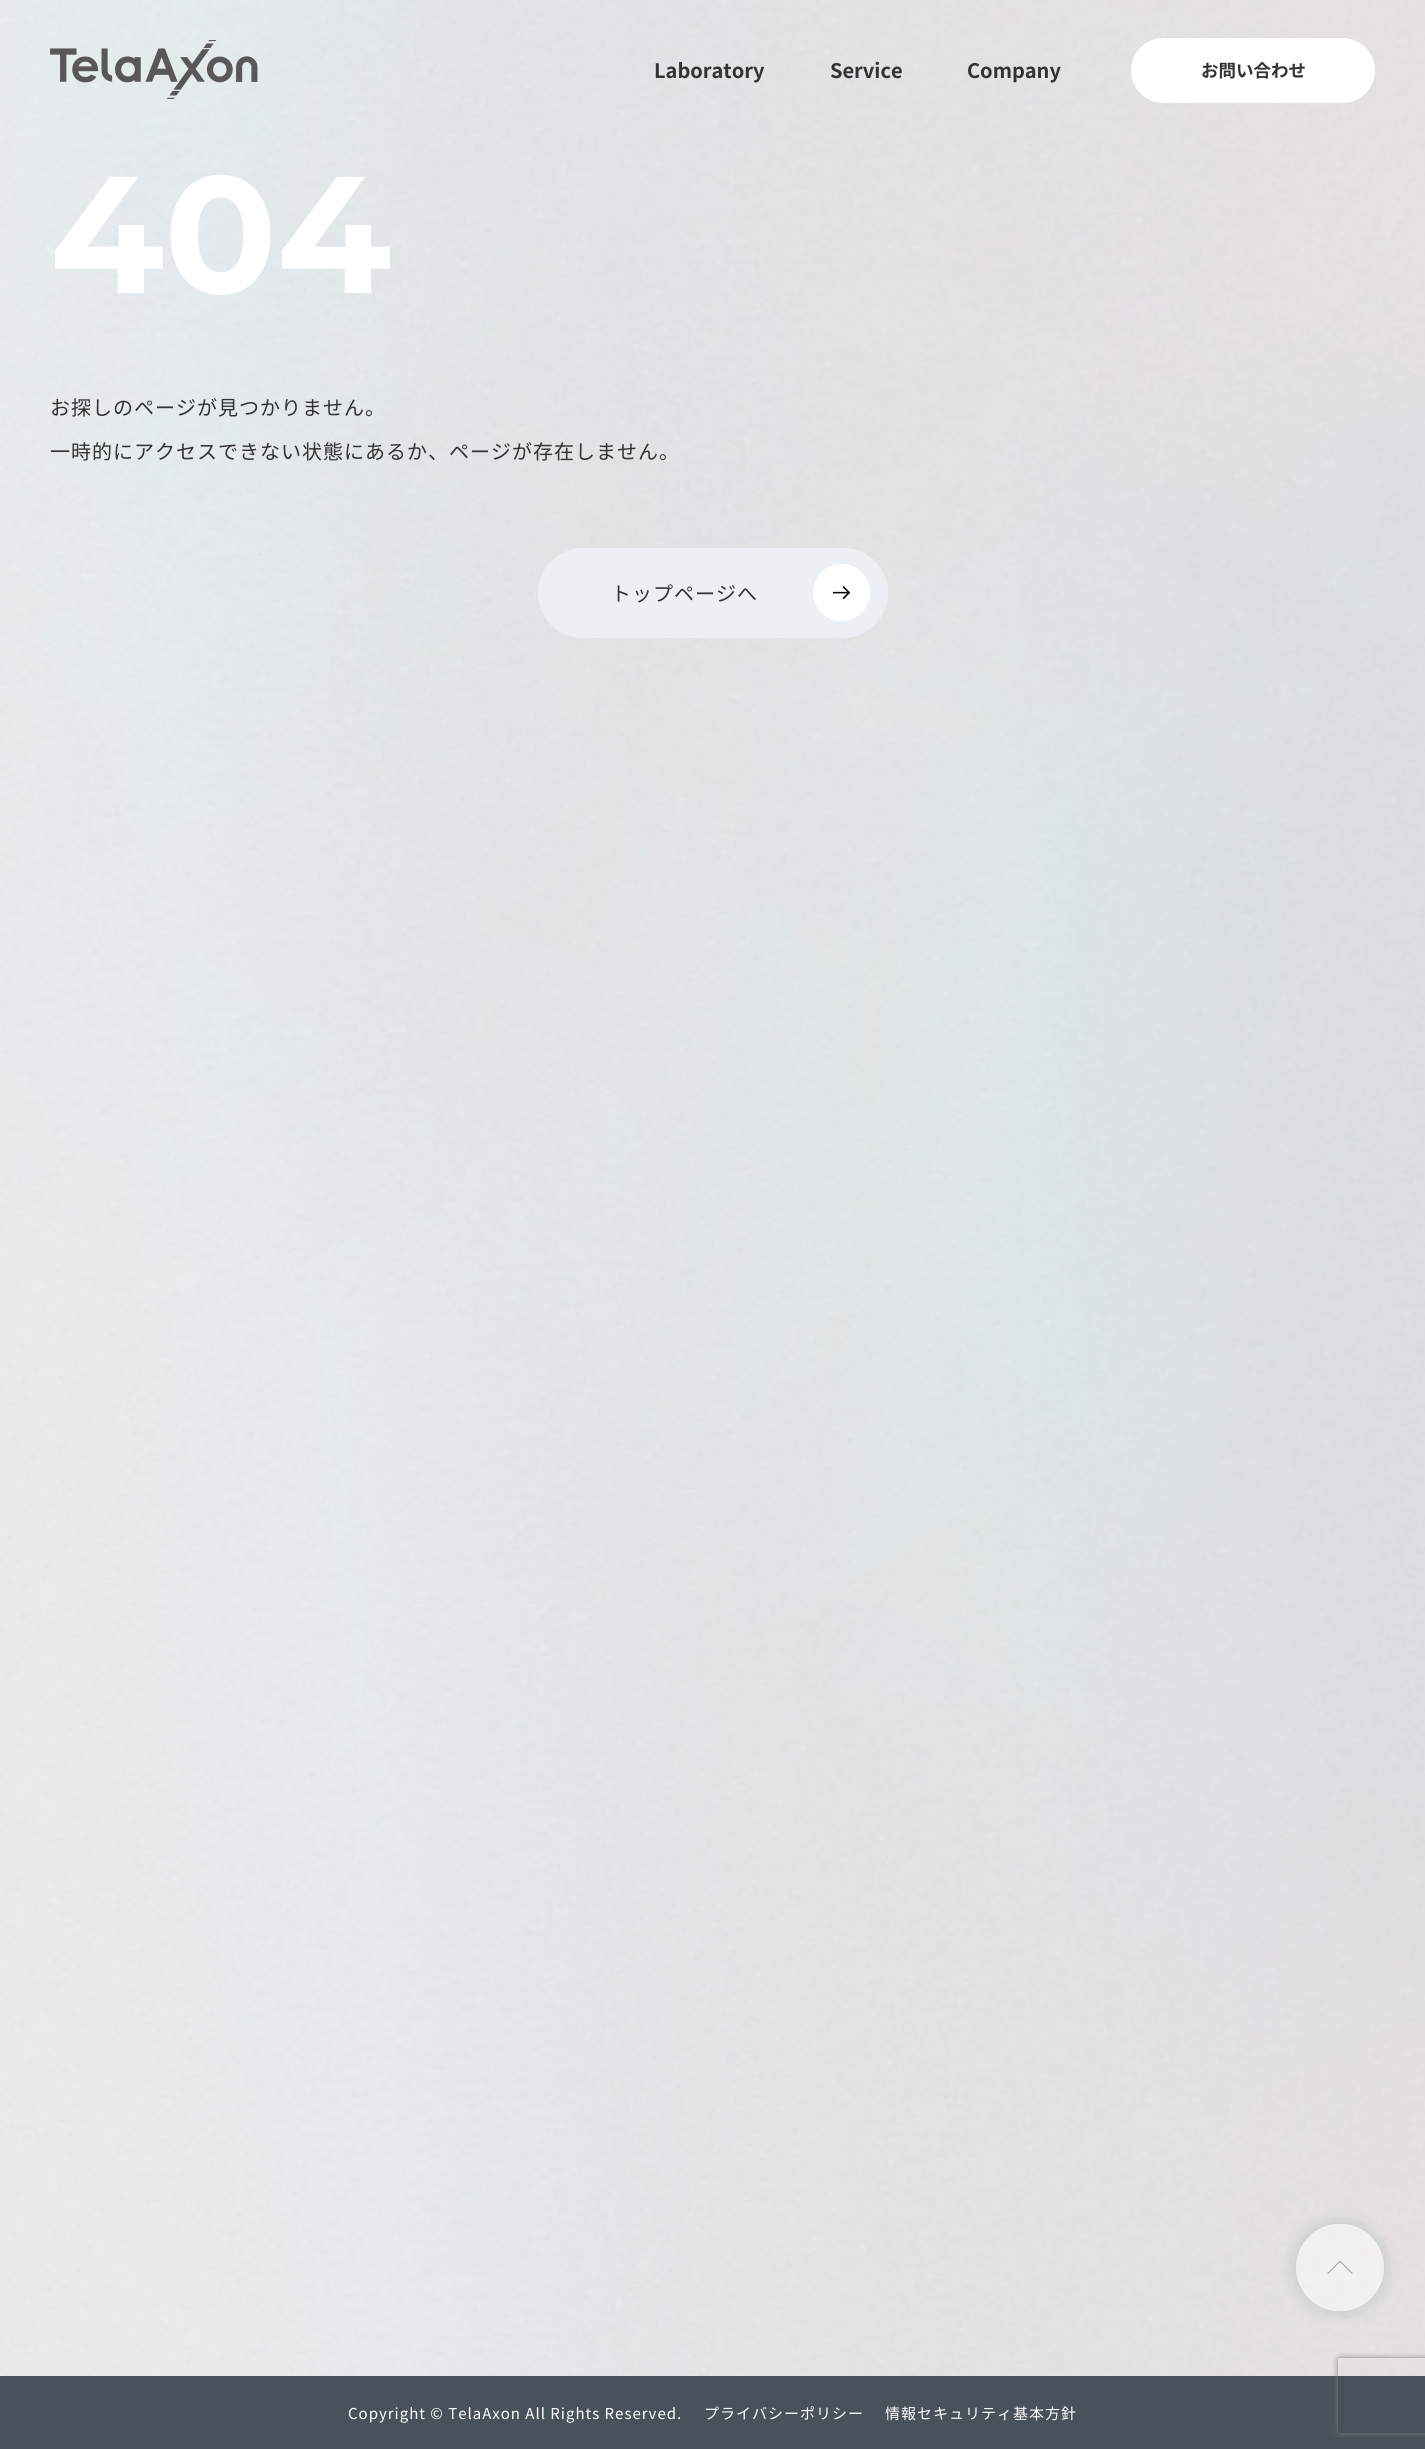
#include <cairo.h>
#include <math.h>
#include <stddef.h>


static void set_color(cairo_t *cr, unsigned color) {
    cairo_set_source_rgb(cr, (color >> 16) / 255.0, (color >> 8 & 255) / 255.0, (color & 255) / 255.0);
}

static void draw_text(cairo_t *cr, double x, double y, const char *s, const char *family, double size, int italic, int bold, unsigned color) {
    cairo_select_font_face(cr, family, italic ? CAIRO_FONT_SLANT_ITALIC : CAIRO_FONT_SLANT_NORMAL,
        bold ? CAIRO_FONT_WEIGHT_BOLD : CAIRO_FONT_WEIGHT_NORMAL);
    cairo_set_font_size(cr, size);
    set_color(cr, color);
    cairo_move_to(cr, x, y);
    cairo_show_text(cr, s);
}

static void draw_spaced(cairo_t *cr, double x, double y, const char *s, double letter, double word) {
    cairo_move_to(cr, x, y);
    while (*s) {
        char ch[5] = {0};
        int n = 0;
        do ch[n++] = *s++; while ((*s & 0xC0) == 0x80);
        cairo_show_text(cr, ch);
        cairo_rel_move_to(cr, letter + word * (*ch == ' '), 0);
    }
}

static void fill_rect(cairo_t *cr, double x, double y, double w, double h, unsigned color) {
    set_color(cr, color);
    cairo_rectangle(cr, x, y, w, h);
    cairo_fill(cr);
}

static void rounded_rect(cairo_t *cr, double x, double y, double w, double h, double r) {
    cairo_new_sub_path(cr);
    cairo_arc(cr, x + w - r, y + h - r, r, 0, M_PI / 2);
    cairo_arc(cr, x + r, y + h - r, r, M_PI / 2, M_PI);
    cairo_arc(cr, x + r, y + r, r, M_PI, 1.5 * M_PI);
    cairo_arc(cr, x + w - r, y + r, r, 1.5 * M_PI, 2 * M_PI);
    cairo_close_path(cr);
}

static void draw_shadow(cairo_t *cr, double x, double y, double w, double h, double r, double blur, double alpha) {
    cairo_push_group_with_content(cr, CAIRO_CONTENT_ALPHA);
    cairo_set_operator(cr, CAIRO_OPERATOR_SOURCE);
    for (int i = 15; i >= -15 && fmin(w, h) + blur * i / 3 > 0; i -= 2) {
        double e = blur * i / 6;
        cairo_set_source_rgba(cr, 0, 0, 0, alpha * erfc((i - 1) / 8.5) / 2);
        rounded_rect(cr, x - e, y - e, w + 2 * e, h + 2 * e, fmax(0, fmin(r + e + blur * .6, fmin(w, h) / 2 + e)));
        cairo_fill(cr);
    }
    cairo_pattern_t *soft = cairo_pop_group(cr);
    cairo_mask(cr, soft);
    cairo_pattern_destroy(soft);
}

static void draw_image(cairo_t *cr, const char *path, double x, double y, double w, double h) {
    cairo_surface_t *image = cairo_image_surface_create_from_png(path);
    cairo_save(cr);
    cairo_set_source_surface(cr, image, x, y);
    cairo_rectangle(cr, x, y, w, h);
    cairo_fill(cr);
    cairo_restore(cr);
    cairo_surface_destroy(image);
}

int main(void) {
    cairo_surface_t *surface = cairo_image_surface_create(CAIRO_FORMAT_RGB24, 1425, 2449);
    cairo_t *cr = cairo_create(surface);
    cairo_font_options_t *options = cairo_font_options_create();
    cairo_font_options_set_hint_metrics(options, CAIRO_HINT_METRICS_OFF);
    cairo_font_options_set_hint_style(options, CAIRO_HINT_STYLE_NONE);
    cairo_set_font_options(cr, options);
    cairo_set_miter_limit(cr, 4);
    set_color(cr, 0xFFFFFF);
    cairo_paint(cr);
    draw_image(cr, "assets/img1.png", 0, 0, 1425, 2376);
    draw_image(cr, "assets/img2.png", 50, 40, 208, 59);
    draw_text(cr, 654, 78, "Laboratory", "Noto Sans JP", 20, 0, 1, 0x333333);
    draw_text(cr, 830, 78, "Service", "Noto Sans JP", 20, 0, 1, 0x333333);
    draw_text(cr, 967, 78, "Company", "Noto Sans JP", 20, 0, 1, 0x333333);
    set_color(cr, 0xFFFFFF);
    rounded_rect(cr, 1131, 38, 244, 65, 32.5);
    cairo_fill(cr);
    draw_text(cr, 1201, 77, "お問い合わせ", "Noto Sans JP", 17.5, 0, 1, 0x333333);
    draw_text(cr, 50, 293, "404", "Montserrat", 166, 0, 1, 0xFFFFFF);
    cairo_select_font_face(cr, "Noto Sans JP", CAIRO_FONT_SLANT_NORMAL, CAIRO_FONT_WEIGHT_NORMAL);
    cairo_set_font_size(cr, 20);
    set_color(cr, 0x333333);
    draw_spaced(cr, 50, 415, "お探しのページが見つかりません。", 1, 0);
    draw_spaced(cr, 50, 459, "一時的にアクセスできない状態にあるか、ページが存在しません。", 1, 0);
    set_color(cr, 0xECF0F2);
    rounded_rect(cr, 538, 548, 350, 90, 45);
    cairo_fill(cr);
    set_color(cr, 0x333333);
    draw_spaced(cr, 611, 601, "トップページへ", 1, 0);
    set_color(cr, 0xFFFFFF);
    cairo_new_path(cr);
    cairo_arc(cr, 841.5, 592.5, 28.5, 0, 2 * M_PI);
    cairo_fill(cr);
    draw_image(cr, "assets/img3.png", 833, 586, 17, 13);
    cairo_save(cr);
    cairo_set_fill_rule(cr, CAIRO_FILL_RULE_EVEN_ODD);
    cairo_new_path(cr);
    cairo_move_to(cr, 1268, 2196);
    cairo_line_to(cr, 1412, 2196);
    cairo_line_to(cr, 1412, 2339);
    cairo_line_to(cr, 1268, 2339);
    cairo_close_path(cr);
    cairo_move_to(cr, 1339.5, 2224);
    cairo_line_to(cr, 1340.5, 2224);
    cairo_curve_to(cr, 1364.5, 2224, 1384, 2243.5, 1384, 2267.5);
    cairo_curve_to(cr, 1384, 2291.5, 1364.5, 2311, 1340.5, 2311);
    cairo_line_to(cr, 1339.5, 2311);
    cairo_curve_to(cr, 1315.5, 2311, 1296, 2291.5, 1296, 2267.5);
    cairo_curve_to(cr, 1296, 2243.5, 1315.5, 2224, 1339.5, 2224);
    cairo_close_path(cr);
    cairo_clip(cr);
    set_color(cr, 0x001E3C);
    draw_shadow(cr, 1296, 2224, 88, 87, 43.5, 9, 0.16);
    cairo_restore(cr);
    cairo_save(cr);
    cairo_rectangle(cr, 1296, 2224, 88, 87);
    cairo_clip(cr);
    cairo_set_source_rgba(cr, 1, 1, 1, 0.5);
    cairo_arc(cr, 1340, 2267.5, 44, 0, 2 * M_PI);
    cairo_fill(cr);
    cairo_restore(cr);
    set_color(cr, 0xA8A8A7);
    cairo_new_path(cr);
    cairo_move_to(cr, 1352, 2274);
    cairo_line_to(cr, 1340, 2262);
    cairo_line_to(cr, 1328, 2274);
    cairo_line_to(cr, 1327, 2273.5);
    cairo_line_to(cr, 1340, 2260.5);
    cairo_line_to(cr, 1353, 2273.5);
    cairo_close_path(cr);
    cairo_fill(cr);
    fill_rect(cr, 0, 2376, 1425, 73, 0x49515D);
    cairo_set_font_size(cr, 15);
    set_color(cr, 0xFFFFFF);
    draw_spaced(cr, 348, 2419, "Copyright © TelaAxon All Rights Reserved.", 1, 0);
    draw_spaced(cr, 704, 2419, "プライバシーポリシー", 1, 0);
    draw_spaced(cr, 885, 2419, "情報セキュリティ基本方針", 1, 0);
    cairo_save(cr);
    cairo_set_fill_rule(cr, CAIRO_FILL_RULE_EVEN_ODD);
    cairo_new_path(cr);
    cairo_move_to(cr, 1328, 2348);
    cairo_line_to(cr, 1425, 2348);
    cairo_line_to(cr, 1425, 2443);
    cairo_line_to(cr, 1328, 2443);
    cairo_close_path(cr);
    cairo_move_to(cr, 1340.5, 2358);
    cairo_line_to(cr, 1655.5, 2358);
    cairo_curve_to(cr, 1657, 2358, 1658, 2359, 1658, 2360.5);
    cairo_line_to(cr, 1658, 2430.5);
    cairo_curve_to(cr, 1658, 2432, 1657, 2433, 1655.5, 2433);
    cairo_line_to(cr, 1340.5, 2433);
    cairo_curve_to(cr, 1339, 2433, 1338, 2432, 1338, 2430.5);
    cairo_line_to(cr, 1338, 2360.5);
    cairo_curve_to(cr, 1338, 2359, 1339, 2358, 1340.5, 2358);
    cairo_close_path(cr);
    cairo_clip(cr);
    set_color(cr, 0x808080);
    draw_shadow(cr, 1338, 2358, 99, 75, 2.5, 3, 1);
    cairo_restore(cr);
    cairo_surface_write_to_png(surface, "output.png");
    cairo_font_options_destroy(options);
    cairo_destroy(cr);
    cairo_surface_destroy(surface);
    return 0;
}
